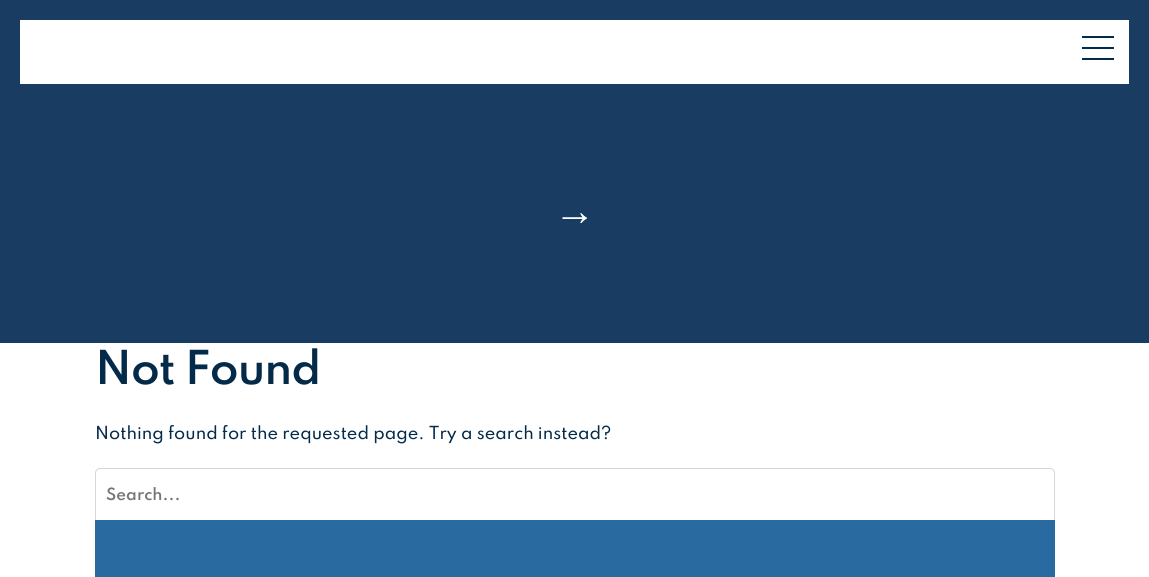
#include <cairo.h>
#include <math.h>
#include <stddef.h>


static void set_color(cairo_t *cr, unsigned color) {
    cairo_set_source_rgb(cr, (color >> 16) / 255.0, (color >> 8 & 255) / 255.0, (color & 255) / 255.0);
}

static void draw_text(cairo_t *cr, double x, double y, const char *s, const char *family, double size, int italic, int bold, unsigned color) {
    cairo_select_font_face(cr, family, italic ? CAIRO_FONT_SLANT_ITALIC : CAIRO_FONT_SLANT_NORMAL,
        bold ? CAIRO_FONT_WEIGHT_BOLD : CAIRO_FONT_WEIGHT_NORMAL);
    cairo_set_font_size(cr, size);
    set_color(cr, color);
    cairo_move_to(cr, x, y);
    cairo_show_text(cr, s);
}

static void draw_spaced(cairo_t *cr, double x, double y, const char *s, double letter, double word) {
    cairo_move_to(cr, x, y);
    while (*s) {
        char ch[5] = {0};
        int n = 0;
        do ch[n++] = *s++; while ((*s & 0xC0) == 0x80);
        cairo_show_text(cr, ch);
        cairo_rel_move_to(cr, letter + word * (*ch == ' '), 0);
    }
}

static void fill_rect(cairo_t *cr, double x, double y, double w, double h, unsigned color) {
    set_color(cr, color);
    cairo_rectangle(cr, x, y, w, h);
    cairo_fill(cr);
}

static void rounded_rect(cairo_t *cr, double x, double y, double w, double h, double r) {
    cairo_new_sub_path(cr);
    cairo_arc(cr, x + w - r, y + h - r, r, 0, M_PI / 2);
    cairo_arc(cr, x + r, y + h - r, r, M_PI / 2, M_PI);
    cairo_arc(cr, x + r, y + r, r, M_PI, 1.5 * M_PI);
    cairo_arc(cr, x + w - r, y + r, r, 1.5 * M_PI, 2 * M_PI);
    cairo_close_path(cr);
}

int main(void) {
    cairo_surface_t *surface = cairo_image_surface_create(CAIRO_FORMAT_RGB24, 1149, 577);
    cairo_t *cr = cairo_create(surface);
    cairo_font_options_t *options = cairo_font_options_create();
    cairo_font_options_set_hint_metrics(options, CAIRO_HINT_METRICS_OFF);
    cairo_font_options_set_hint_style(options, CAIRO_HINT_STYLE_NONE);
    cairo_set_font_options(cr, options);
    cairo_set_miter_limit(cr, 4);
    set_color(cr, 0xFFFFFF);
    cairo_paint(cr);
    fill_rect(cr, 0, 0, 1149, 343, 0x183C62);
    fill_rect(cr, 20, 20, 1109, 64, 0xFFFFFF);
    fill_rect(cr, 1082, 36, 32, 2, 0x042A4A);
    fill_rect(cr, 1082, 47, 32, 2, 0x042A4A);
    fill_rect(cr, 1082, 58, 32, 2, 0x042A4A);
    cairo_select_font_face(cr, "Liberation Sans", CAIRO_FONT_SLANT_NORMAL, CAIRO_FONT_WEIGHT_BOLD);
    cairo_set_font_size(cr, 41.5);
    set_color(cr, 0xFFFFFF);
    draw_spaced(cr, 554, 225, "→", -1, 0);
    cairo_select_font_face(cr, "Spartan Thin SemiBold", CAIRO_FONT_SLANT_NORMAL, CAIRO_FONT_WEIGHT_NORMAL);
    set_color(cr, 0x042A4A);
    draw_spaced(cr, 95, 384, "Not Found", -1, 0);
    draw_text(cr, 95, 439, "Nothing found for the requested page. Try a search instead?", "Spartan Thin Medium", 16, 0, 0, 0x042A4A);
    rounded_rect(cr, 95.5, 468.5, 959, 56, 4.5);
    set_color(cr, 0xD6D6D6);
    cairo_set_line_width(cr, 1);
    cairo_stroke(cr);
    draw_text(cr, 106, 500, "Search...", "Spartan Thin SemiBold", 15, 0, 0, 0x757575);
    fill_rect(cr, 95, 520, 960, 57, 0x296AA1);
    cairo_surface_write_to_png(surface, "output.png");
    cairo_font_options_destroy(options);
    cairo_destroy(cr);
    cairo_surface_destroy(surface);
    return 0;
}
